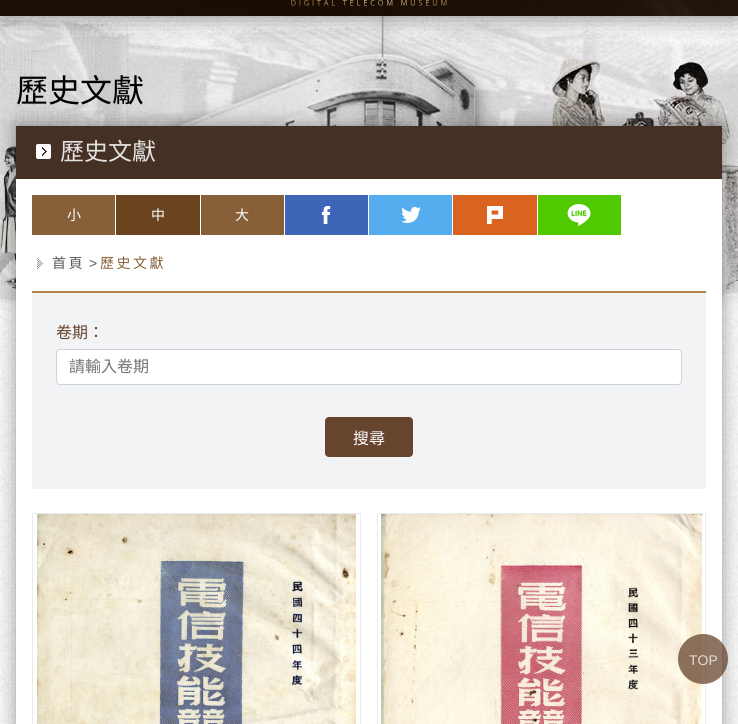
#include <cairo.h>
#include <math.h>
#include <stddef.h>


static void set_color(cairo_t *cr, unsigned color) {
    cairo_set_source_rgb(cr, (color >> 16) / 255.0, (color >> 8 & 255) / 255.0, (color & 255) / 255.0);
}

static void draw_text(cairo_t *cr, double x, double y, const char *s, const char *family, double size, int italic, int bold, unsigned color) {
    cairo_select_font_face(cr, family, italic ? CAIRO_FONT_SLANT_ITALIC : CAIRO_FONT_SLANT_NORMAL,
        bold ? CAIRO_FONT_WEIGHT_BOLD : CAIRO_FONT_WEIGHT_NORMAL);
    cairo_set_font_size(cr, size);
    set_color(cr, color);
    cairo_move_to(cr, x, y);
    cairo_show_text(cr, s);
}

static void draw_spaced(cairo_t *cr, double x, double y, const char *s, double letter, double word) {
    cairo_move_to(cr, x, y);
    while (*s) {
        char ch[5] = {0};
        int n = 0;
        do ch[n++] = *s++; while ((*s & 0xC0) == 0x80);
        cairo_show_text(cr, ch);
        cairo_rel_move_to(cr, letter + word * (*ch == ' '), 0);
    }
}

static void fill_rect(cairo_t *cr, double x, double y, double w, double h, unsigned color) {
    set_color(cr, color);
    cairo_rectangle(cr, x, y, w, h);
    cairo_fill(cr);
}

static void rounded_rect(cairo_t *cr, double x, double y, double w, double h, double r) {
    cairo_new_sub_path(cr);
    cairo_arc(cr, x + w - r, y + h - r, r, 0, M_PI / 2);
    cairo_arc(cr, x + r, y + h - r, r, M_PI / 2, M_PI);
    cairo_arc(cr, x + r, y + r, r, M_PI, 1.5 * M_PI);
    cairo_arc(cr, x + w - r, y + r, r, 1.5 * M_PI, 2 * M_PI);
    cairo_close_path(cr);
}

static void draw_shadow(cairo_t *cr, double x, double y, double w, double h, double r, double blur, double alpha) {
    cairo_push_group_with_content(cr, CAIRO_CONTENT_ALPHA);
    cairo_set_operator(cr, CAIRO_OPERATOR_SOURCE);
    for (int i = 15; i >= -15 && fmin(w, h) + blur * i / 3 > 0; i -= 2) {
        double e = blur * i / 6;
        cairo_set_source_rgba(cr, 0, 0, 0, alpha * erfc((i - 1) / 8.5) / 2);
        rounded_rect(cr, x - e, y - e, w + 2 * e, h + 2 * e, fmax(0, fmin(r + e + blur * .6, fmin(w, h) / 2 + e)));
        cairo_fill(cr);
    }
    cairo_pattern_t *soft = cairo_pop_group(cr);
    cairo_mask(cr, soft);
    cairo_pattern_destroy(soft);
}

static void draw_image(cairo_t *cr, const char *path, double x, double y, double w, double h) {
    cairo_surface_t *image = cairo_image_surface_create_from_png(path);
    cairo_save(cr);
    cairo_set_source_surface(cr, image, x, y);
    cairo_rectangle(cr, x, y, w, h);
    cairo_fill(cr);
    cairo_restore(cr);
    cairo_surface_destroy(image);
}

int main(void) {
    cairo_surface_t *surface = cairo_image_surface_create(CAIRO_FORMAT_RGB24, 738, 724);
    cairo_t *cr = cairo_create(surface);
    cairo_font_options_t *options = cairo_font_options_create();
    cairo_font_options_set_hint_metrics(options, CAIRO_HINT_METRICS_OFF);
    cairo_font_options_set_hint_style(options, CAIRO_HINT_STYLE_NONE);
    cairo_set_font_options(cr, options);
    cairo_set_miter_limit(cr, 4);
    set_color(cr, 0xFFFFFF);
    cairo_paint(cr);
    draw_image(cr, "assets/img3.png", 0, 16, 738, 708);
    set_color(cr, 0x000000);
    draw_shadow(cr, 0, -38, 738, 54, 0, 12.5, 0.5);
    draw_image(cr, "assets/img1.png", 0, 0, 738, 16);
    draw_image(cr, "assets/img2.png", 291, 0, 156, 6);
    draw_text(cr, 16, 102, "歷史文獻", "Noto Sans CJK TC", 32, 0, 0, 0x000000);
    set_color(cr, 0x000000);
    draw_shadow(cr, 16, 126, 706, 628, 0, 10, 0.4);
    fill_rect(cr, 16, 179, 706, 545, 0xFFFFFF);
    fill_rect(cr, 16, 126, 706, 53, 0x443025);
    draw_image(cr, "assets/img4.png", 36, 144, 15, 15);
    draw_text(cr, 60, 160, "歷史文獻", "Noto Sans CJK TC", 24, 0, 0, 0xE3E0DE);
    fill_rect(cr, 32, 195, 83, 40, 0x87603A);
    draw_text(cr, 67, 220, "小", "Noto Sans CJK TC", 14, 0, 0, 0xFFFFFF);
    fill_rect(cr, 116, 195, 84, 40, 0x69441F);
    draw_text(cr, 151, 220, "中", "Noto Sans CJK TC", 14, 0, 0, 0xFFFFFF);
    fill_rect(cr, 201, 195, 83, 40, 0x87603A);
    draw_text(cr, 235, 220, "大", "Noto Sans CJK TC", 14, 0, 0, 0xFFFFFF);
    fill_rect(cr, 285, 195, 83, 40, 0x3E65B7);
    draw_image(cr, "assets/img5.png", 321, 206, 10, 18);
    fill_rect(cr, 369, 195, 83, 40, 0x55ACEE);
    draw_image(cr, "assets/img6.png", 401, 206, 20, 17);
    fill_rect(cr, 453, 195, 84, 40, 0xDB6320);
    draw_image(cr, "assets/img7.png", 487, 206, 16, 18);
    fill_rect(cr, 538, 195, 83, 40, 0x50C900);
    draw_image(cr, "assets/img8.png", 567, 204, 24, 22);
    draw_image(cr, "assets/img9.png", 37, 258, 6, 11);
    set_color(cr, 0x595959);
    draw_spaced(cr, 52, 268, "首頁", 2.5, 0);
    cairo_select_font_face(cr, "Liberation Sans", CAIRO_FONT_SLANT_NORMAL, CAIRO_FONT_WEIGHT_NORMAL);
    draw_spaced(cr, 89, 268, ">", 2.5, 0);
    cairo_select_font_face(cr, "Noto Sans CJK TC", CAIRO_FONT_SLANT_NORMAL, CAIRO_FONT_WEIGHT_NORMAL);
    set_color(cr, 0x87603A);
    draw_spaced(cr, 100, 268, "歷史文獻", 2.5, 0);
    fill_rect(cr, 32, 293, 674, 196, 0xF1F3F5);
    fill_rect(cr, 32, 291, 674, 2, 0xAE834F);
    draw_text(cr, 56, 338, "卷期：", "Noto Sans CJK TC", 16, 0, 0, 0x66442E);
    set_color(cr, 0xFFFFFF);
    rounded_rect(cr, 56.5, 349.5, 625, 35, 3.5);
    cairo_fill_preserve(cr);
    set_color(cr, 0xCED4DA);
    cairo_set_line_width(cr, 1);
    cairo_stroke(cr);
    draw_text(cr, 69, 372, "請輸入卷期", "Noto Sans CJK TC", 16, 0, 0, 0x757575);
    set_color(cr, 0x66442E);
    rounded_rect(cr, 325, 417, 88, 40, 4);
    cairo_fill(cr);
    draw_text(cr, 353, 444, "搜尋", "Noto Sans CJK TC", 16, 0, 0, 0xFFFFFF);
    cairo_rectangle(cr, 32.5, 513.5, 328, 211);
    set_color(cr, 0xE9ECEF);
    cairo_stroke(cr);
    draw_image(cr, "assets/img10.png", 37, 514, 319, 210);
    cairo_rectangle(cr, 377.5, 513.5, 328, 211);
    cairo_stroke(cr);
    draw_image(cr, "assets/img11.png", 381, 514, 321, 210);
    cairo_set_source_rgba(cr, 0.4, 0.267, 0.18, 0.75);
    cairo_arc(cr, 703, 659, 25, 0, 2 * M_PI);
    cairo_fill(cr);
    draw_text(cr, 689, 665, "TOP", "Liberation Sans", 14, 0, 0, 0xE2DBD7);
    cairo_surface_write_to_png(surface, "output.png");
    cairo_font_options_destroy(options);
    cairo_destroy(cr);
    cairo_surface_destroy(surface);
    return 0;
}
